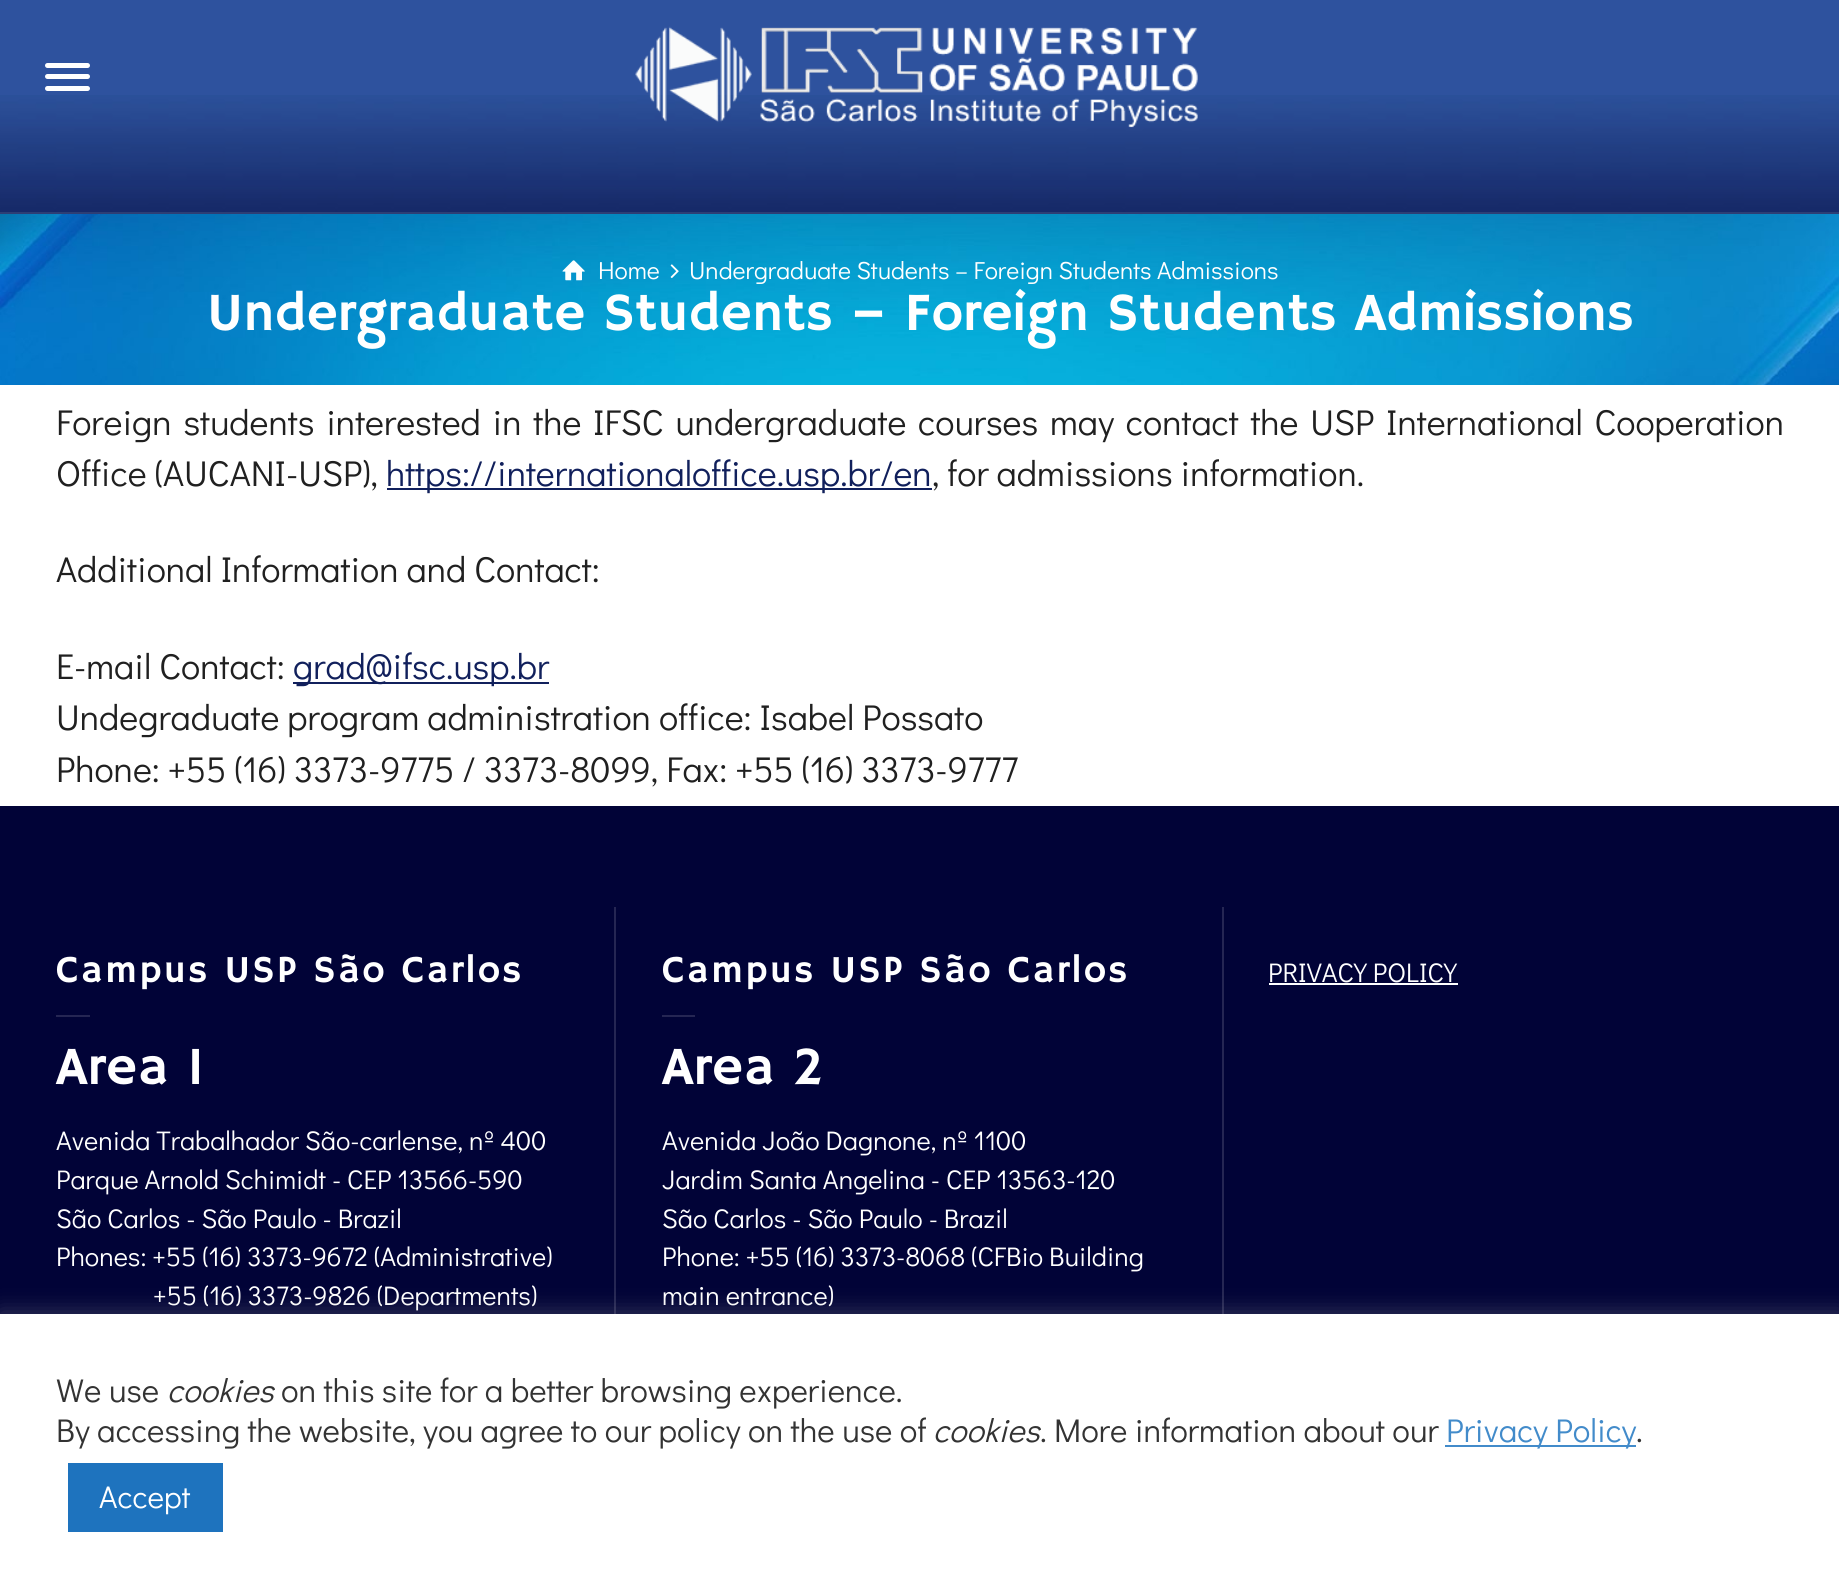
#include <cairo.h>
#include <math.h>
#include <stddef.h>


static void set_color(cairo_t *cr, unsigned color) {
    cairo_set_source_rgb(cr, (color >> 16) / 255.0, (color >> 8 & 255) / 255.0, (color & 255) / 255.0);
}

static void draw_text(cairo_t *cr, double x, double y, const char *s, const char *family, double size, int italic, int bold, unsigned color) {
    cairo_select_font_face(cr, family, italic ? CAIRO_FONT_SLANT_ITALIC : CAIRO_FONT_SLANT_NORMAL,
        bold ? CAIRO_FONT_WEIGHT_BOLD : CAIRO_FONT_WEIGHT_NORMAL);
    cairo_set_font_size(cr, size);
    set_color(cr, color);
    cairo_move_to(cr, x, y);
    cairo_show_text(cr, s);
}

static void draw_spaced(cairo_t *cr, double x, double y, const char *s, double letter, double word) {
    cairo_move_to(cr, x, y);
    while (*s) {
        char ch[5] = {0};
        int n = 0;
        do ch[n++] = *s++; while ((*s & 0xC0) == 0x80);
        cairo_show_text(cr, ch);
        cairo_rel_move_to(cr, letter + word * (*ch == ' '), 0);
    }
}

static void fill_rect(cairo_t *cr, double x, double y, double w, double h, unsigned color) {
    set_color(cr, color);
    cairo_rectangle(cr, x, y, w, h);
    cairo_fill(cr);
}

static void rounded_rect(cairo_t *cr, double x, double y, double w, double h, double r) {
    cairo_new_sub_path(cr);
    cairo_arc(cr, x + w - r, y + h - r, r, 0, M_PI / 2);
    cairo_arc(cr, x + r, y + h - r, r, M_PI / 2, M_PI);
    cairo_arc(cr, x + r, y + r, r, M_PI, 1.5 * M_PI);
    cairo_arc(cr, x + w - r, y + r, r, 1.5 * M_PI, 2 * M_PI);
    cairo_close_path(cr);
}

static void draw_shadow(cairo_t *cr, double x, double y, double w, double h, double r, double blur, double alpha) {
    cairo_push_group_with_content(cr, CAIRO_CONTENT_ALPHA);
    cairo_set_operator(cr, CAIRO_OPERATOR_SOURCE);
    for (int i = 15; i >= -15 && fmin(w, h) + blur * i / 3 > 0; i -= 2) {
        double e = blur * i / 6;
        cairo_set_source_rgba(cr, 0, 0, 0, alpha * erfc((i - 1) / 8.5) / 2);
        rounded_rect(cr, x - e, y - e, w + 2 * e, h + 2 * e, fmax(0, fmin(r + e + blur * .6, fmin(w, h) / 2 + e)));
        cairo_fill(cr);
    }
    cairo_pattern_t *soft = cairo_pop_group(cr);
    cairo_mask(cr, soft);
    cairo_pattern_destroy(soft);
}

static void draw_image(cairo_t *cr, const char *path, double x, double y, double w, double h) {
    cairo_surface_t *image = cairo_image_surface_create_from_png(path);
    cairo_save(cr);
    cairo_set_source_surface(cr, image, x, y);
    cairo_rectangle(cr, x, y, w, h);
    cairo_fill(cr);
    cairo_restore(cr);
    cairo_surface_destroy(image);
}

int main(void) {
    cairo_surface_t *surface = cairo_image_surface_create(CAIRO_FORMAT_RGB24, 1839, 1588);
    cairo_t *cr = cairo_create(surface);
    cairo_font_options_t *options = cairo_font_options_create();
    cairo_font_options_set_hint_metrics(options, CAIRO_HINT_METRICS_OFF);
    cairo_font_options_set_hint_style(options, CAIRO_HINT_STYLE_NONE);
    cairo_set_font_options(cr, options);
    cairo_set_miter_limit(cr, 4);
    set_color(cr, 0x2E529E);
    cairo_paint(cr);
    draw_image(cr, "assets/img1.png", 0, 95, 1839, 117);
    fill_rect(cr, 0, 212, 1839, 2, 0x2D3E75);
    set_color(cr, 0xFFFFFF);
    rounded_rect(cr, 45, 63, 45, 5, 2.5);
    cairo_fill(cr);
    rounded_rect(cr, 45, 74, 45, 5, 2.5);
    cairo_fill(cr);
    rounded_rect(cr, 45, 86, 45, 5, 2.5);
    cairo_fill(cr);
    draw_image(cr, "assets/img2.png", 635, 26, 563, 102);
    draw_image(cr, "assets/img3.png", 0, 214, 1839, 171);
    draw_image(cr, "assets/img4.png", 562, 260, 23, 21);
    draw_text(cr, 598, 279, "Home", "Didact Gothic", 24.75, 0, 0, 0xFFFFFF);
    draw_image(cr, "assets/img5.png", 670, 264, 9, 15);
    draw_text(cr, 689, 279, "Undergraduate Students – Foreign Students Admissions", "Didact Gothic", 24.75, 0, 0, 0xFFFFFF);
    draw_text(cr, 207, 330, "Undergraduate Students – Foreign Students Admissions", "Hammersmith One", 54, 0, 0, 0xFFFFFF);
    fill_rect(cr, 0, 385, 1839, 421, 0xFFFFFF);
    cairo_select_font_face(cr, "Didact Gothic", CAIRO_FONT_SLANT_NORMAL, CAIRO_FONT_WEIGHT_NORMAL);
    cairo_set_font_size(cr, 36);
    set_color(cr, 0x202020);
    draw_spaced(cr, 56, 435, "Foreign students interested in the IFSC undergraduate courses may contact the USP International Cooperation", 0, 3.75);
    draw_text(cr, 56, 486, "Office (AUCANI-USP),", "Didact Gothic", 36, 0, 0, 0x202020);
    fill_rect(cr, 387, 488, 545, 2, 0x11205C);
    draw_text(cr, 386, 486, "https://internationaloffice.usp.br/en", "Didact Gothic", 36, 0, 0, 0x11205C);
    draw_text(cr, 932, 486, ", for admissions information.", "Didact Gothic", 36, 0, 0, 0x202020);
    draw_text(cr, 56, 582, "Additional Information and Contact:", "Didact Gothic", 36, 0, 0, 0x202020);
    draw_text(cr, 56, 679, "E-mail Contact:", "Didact Gothic", 36, 0, 0, 0x202020);
    fill_rect(cr, 293, 682, 256, 2, 0x11205C);
    draw_text(cr, 293, 679, "grad@ifsc.usp.br", "Didact Gothic", 36, 0, 0, 0x11205C);
    draw_text(cr, 56, 730, "Undegraduate program administration office: Isabel Possato", "Didact Gothic", 36, 0, 0, 0x202020);
    draw_text(cr, 56, 782, "Phone: +55 (16) 3373-9775 / 3373-8099, Fax: +55 (16) 3373-9777", "Didact Gothic", 36, 0, 0, 0x202020);
    fill_rect(cr, 0, 806, 1839, 508, 0x010337);
    cairo_select_font_face(cr, "Hammersmith One", CAIRO_FONT_SLANT_NORMAL, CAIRO_FONT_WEIGHT_NORMAL);
    cairo_set_font_size(cr, 38.25);
    set_color(cr, 0xFFFFFF);
    draw_spaced(cr, 56, 982, "Campus USP São Carlos", 2.25, 0);
    fill_rect(cr, 56, 1015, 34, 2, 0x252653);
    draw_text(cr, 56, 1084, "Area 1", "Hammersmith One", 54, 0, 0, 0xFFFFFF);
    draw_text(cr, 56, 1150, "Avenida Trabalhador São-carlense, nº 400", "Didact Gothic", 27, 0, 0, 0xFFFFFF);
    draw_text(cr, 56, 1189, "Parque Arnold Schimidt - CEP 13566-590", "Didact Gothic", 27, 0, 0, 0xFFFFFF);
    draw_text(cr, 56, 1228, "São Carlos - São Paulo - Brazil", "Didact Gothic", 27, 0, 0, 0xFFFFFF);
    draw_text(cr, 56, 1266, "Phones: +55 (16) 3373-9672 (Administrative)", "Didact Gothic", 27, 0, 0, 0xFFFFFF);
    draw_text(cr, 153, 1305, "+55 (16) 3373-9826 (Departments)", "Didact Gothic", 27, 0, 0, 0xFFFFFF);
    fill_rect(cr, 614, 907, 2, 407, 0x252653);
    cairo_select_font_face(cr, "Hammersmith One", CAIRO_FONT_SLANT_NORMAL, CAIRO_FONT_WEIGHT_NORMAL);
    cairo_set_font_size(cr, 38.25);
    set_color(cr, 0xFFFFFF);
    draw_spaced(cr, 662, 982, "Campus USP São Carlos", 2.25, 0);
    fill_rect(cr, 662, 1015, 33, 2, 0x252653);
    draw_text(cr, 662, 1084, "Area 2", "Hammersmith One", 54, 0, 0, 0xFFFFFF);
    draw_text(cr, 662, 1150, "Avenida João Dagnone, nº 1100", "Didact Gothic", 27, 0, 0, 0xFFFFFF);
    draw_text(cr, 662, 1189, "Jardim Santa Angelina - CEP 13563-120", "Didact Gothic", 27, 0, 0, 0xFFFFFF);
    draw_text(cr, 662, 1228, "São Carlos - São Paulo - Brazil", "Didact Gothic", 27, 0, 0, 0xFFFFFF);
    draw_text(cr, 662, 1266, "Phone: +55 (16) 3373-8068 (CFBio Building", "Didact Gothic", 27, 0, 0, 0xFFFFFF);
    draw_text(cr, 662, 1305, "main entrance)", "Didact Gothic", 27, 0, 0, 0xFFFFFF);
    fill_rect(cr, 1222, 907, 2, 407, 0x252653);
    draw_text(cr, 1268, 982, "PRIVACY POLICY", "Didact Gothic", 27, 0, 0, 0xFFFFFF);
    fill_rect(cr, 1269, 983, 189, 2, 0xFFFFFF);
    set_color(cr, 0xACABAB);
    draw_shadow(cr, 0, 1312, 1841, 274, 0, 11, 0.3);
    fill_rect(cr, 0, 1314, 1839, 274, 0xFFFFFF);
    draw_text(cr, 56, 1402, "We use", "Didact Gothic", 33, 0, 0, 0x333333);
    draw_text(cr, 167, 1402, "cookies", "Didact Gothic", 33, 1, 0, 0x333333);
    draw_text(cr, 281, 1402, "on this site for a better browsing experience.", "Didact Gothic", 33, 0, 0, 0x333333);
    draw_text(cr, 56, 1442, "By accessing the website, you agree to our policy on the use of", "Didact Gothic", 33, 0, 0, 0x333333);
    draw_text(cr, 933, 1442, "cookies", "Didact Gothic", 33, 1, 0, 0x333333);
    draw_text(cr, 1040, 1442, ". More information about our", "Didact Gothic", 33, 0, 0, 0x333333);
    fill_rect(cr, 1445, 1445, 191, 2, 0x428BCA);
    draw_text(cr, 1446, 1442, "Privacy Policy", "Didact Gothic", 33, 0, 0, 0x428BCA);
    draw_text(cr, 1636, 1442, ".", "Didact Gothic", 33, 0, 0, 0x333333);
    fill_rect(cr, 68, 1463, 155, 69, 0x1E73BE);
    draw_text(cr, 99, 1508, "Accept", "Didact Gothic", 31.5, 0, 0, 0xFFFFFF);
    cairo_surface_write_to_png(surface, "output.png");
    cairo_font_options_destroy(options);
    cairo_destroy(cr);
    cairo_surface_destroy(surface);
    return 0;
}
